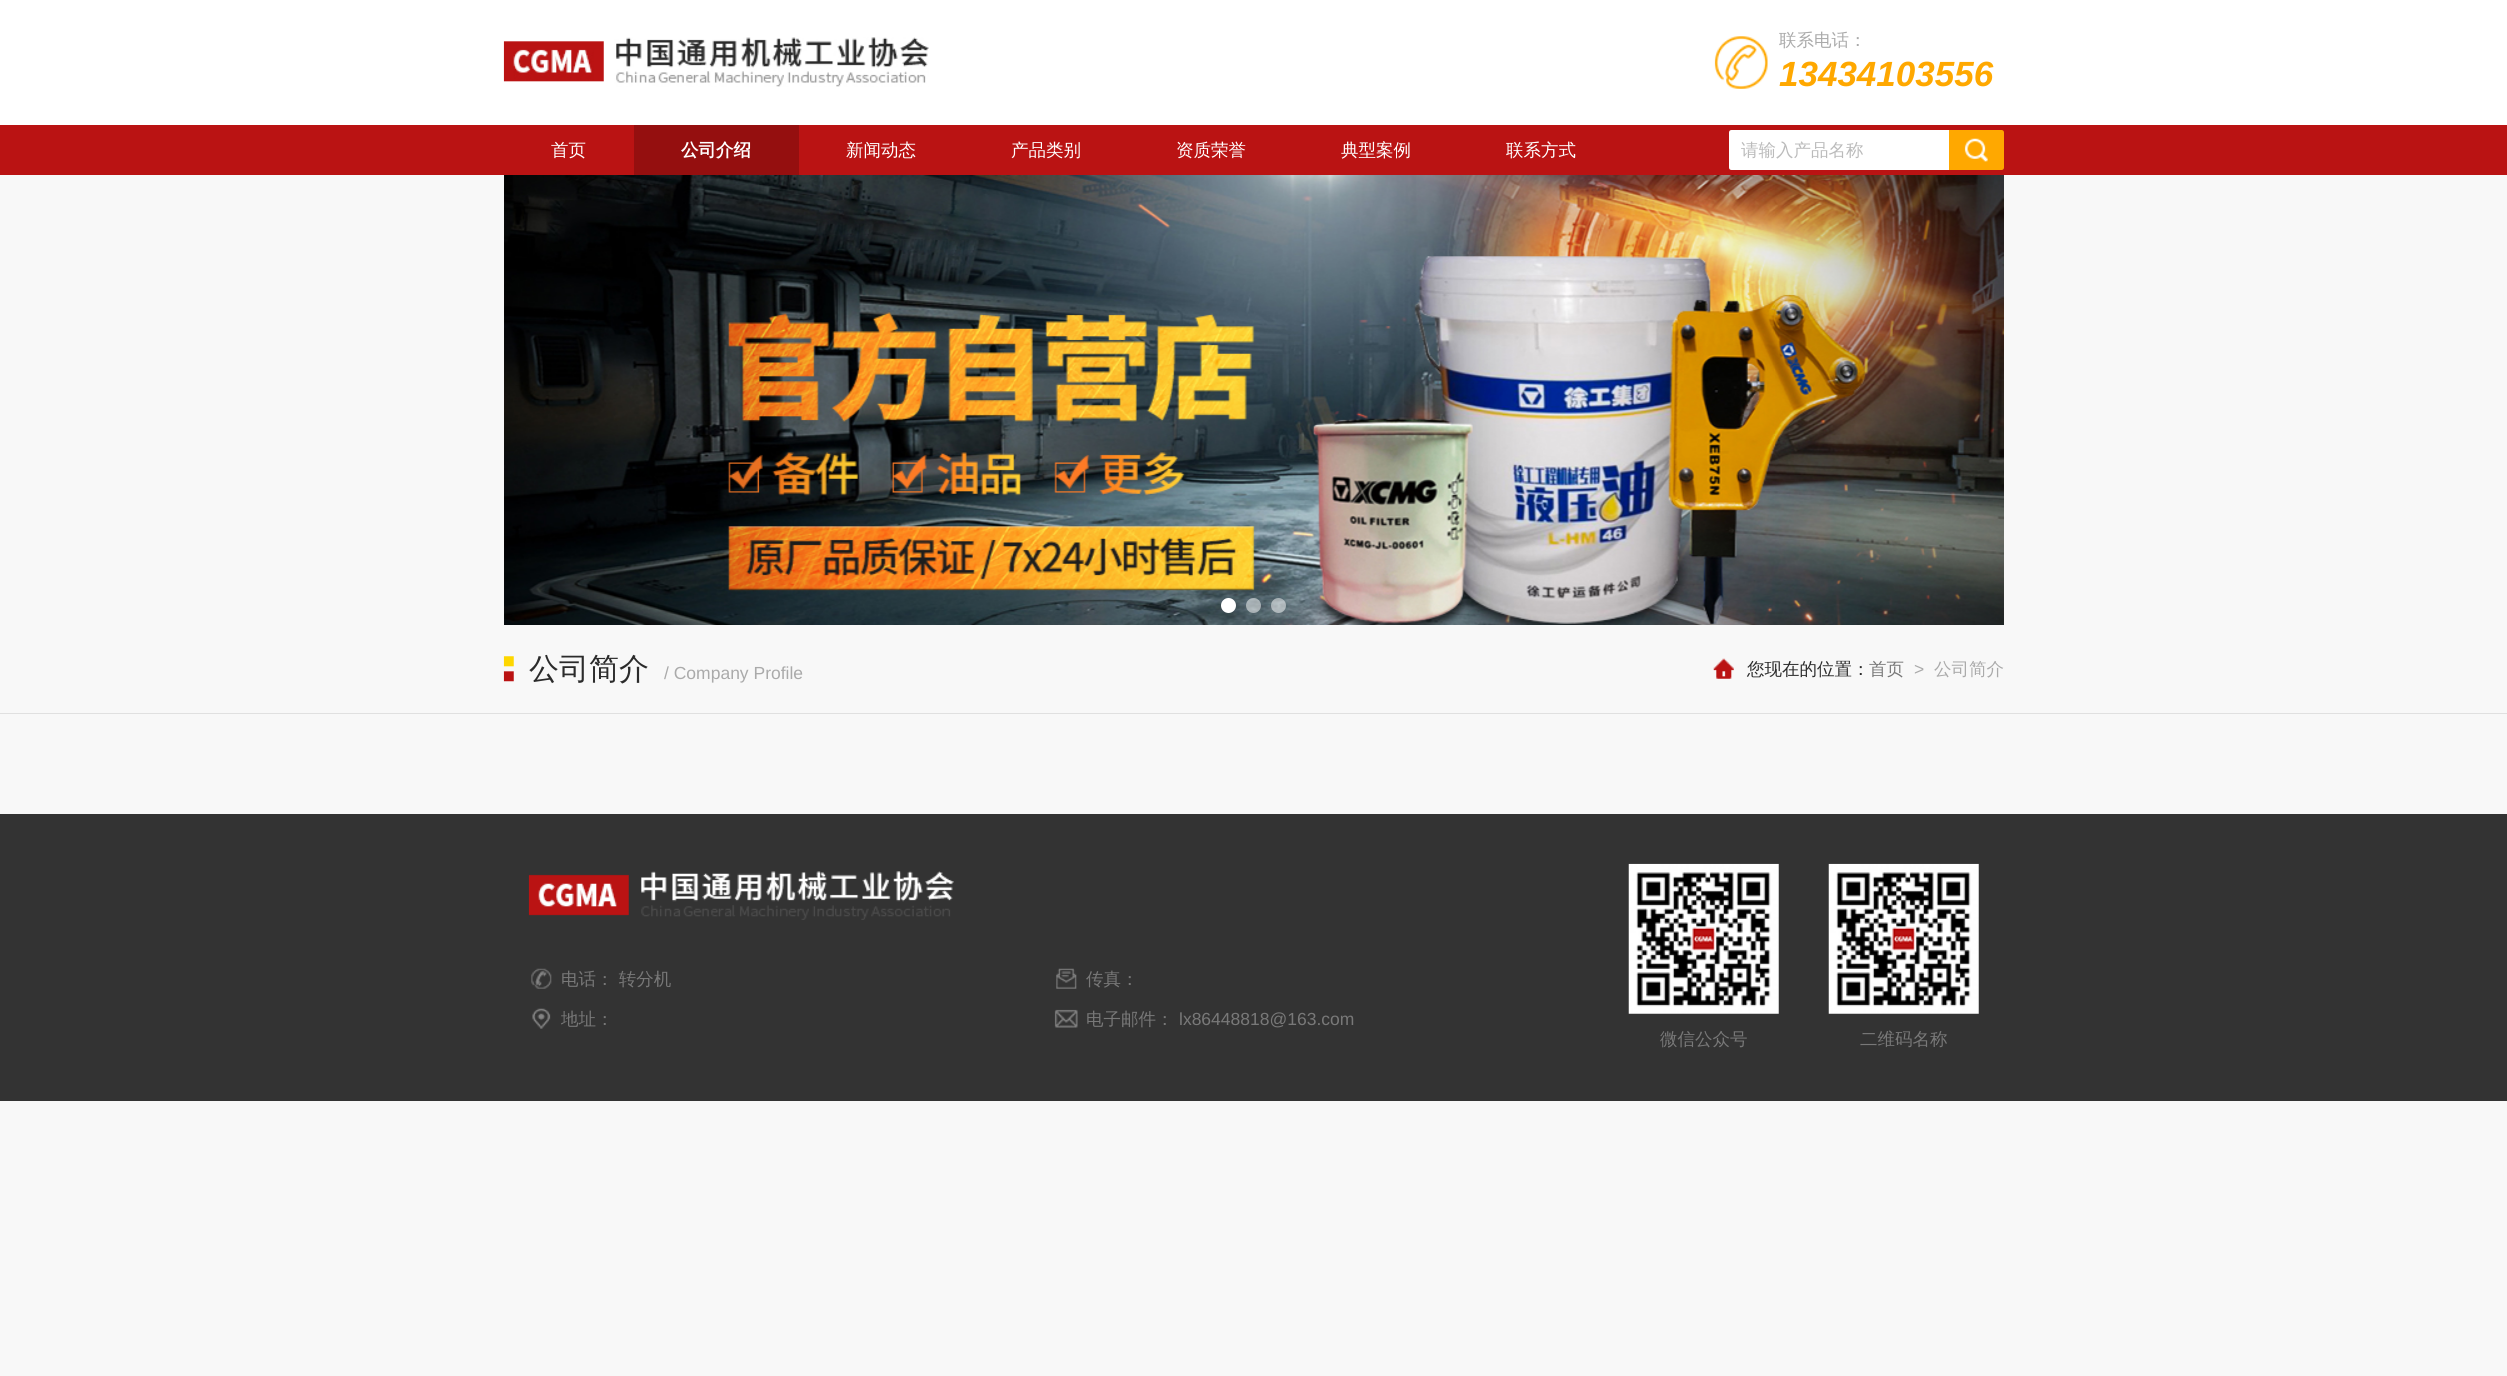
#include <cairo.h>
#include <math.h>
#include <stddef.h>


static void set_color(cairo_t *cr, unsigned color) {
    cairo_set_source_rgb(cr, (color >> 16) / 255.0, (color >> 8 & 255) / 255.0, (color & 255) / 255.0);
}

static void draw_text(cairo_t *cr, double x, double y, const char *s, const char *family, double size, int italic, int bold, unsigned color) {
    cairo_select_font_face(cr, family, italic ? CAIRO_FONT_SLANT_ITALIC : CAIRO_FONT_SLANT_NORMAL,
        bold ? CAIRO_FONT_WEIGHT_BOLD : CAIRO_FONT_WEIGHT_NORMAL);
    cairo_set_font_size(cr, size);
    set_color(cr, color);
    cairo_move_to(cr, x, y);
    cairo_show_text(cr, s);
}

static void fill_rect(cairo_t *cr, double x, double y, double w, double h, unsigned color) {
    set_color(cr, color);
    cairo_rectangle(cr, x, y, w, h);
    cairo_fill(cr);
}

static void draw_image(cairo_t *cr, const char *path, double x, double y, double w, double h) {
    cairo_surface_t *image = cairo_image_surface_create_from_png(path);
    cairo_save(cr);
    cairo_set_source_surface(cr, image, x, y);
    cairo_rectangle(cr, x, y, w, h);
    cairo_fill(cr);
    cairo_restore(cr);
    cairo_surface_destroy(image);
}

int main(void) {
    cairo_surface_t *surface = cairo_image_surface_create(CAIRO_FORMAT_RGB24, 2507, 1376);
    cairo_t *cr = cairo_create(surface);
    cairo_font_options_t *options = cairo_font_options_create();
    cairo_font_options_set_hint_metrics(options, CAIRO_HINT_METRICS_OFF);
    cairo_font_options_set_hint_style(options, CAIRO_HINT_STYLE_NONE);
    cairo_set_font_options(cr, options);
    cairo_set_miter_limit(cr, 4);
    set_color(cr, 0xF8F8F8);
    cairo_paint(cr);
    fill_rect(cr, 0, 0, 2507, 125, 0xFFFFFF);
    draw_image(cr, "assets/img1.png", 503, 37, 426, 50);
    draw_image(cr, "assets/img2.png", 1714, 36, 54, 53);
    draw_text(cr, 1779, 46, "联系电话：", "WenQuanYi Zen Hei Medium", 17.5, 0, 0, 0xAAAAAA);
    draw_text(cr, 1779, 86, "13434103556", "Liberation Sans", 35, 1, 1, 0xFFA800);
    fill_rect(cr, 0, 125, 2507, 50, 0xBA1313);
    draw_text(cr, 551, 156, "首页", "WenQuanYi Zen Hei Medium", 17.5, 0, 0, 0xFFFFFF);
    fill_rect(cr, 634, 125, 165, 50, 0x950F0F);
    draw_text(cr, 681, 156, "公司介绍", "WenQuanYi Zen Hei", 17.5, 0, 1, 0xFFFFFF);
    draw_text(cr, 846, 156, "新闻动态", "WenQuanYi Zen Hei Medium", 17.5, 0, 0, 0xFFFFFF);
    draw_text(cr, 1011, 156, "产品类别", "WenQuanYi Zen Hei Medium", 17.5, 0, 0, 0xFFFFFF);
    draw_text(cr, 1176, 156, "资质荣誉", "WenQuanYi Zen Hei Medium", 17.5, 0, 0, 0xFFFFFF);
    draw_text(cr, 1341, 156, "典型案例", "WenQuanYi Zen Hei Medium", 17.5, 0, 0, 0xFFFFFF);
    draw_text(cr, 1506, 156, "联系方式", "WenQuanYi Zen Hei Medium", 17.5, 0, 0, 0xFFFFFF);
    cairo_new_path(cr);
    cairo_move_to(cr, 1731.5, 130);
    cairo_line_to(cr, 1949, 130);
    cairo_line_to(cr, 1949, 170);
    cairo_line_to(cr, 1731.5, 170);
    cairo_curve_to(cr, 1730, 170, 1729, 169, 1729, 167.5);
    cairo_line_to(cr, 1729, 132.5);
    cairo_curve_to(cr, 1729, 131, 1730, 130, 1731.5, 130);
    cairo_close_path(cr);
    cairo_fill(cr);
    draw_text(cr, 1741, 156, "请输入产品名称", "WenQuanYi Zen Hei Medium", 17.5, 0, 0, 0xBBBBBB);
    set_color(cr, 0xFFA800);
    cairo_new_path(cr);
    cairo_move_to(cr, 1949, 130);
    cairo_line_to(cr, 2001.5, 130);
    cairo_curve_to(cr, 2003, 130, 2004, 131, 2004, 132.5);
    cairo_line_to(cr, 2004, 167.5);
    cairo_curve_to(cr, 2004, 169, 2003, 170, 2001.5, 170);
    cairo_line_to(cr, 1949, 170);
    cairo_close_path(cr);
    cairo_fill(cr);
    draw_image(cr, "assets/img3.png", 1964, 138, 24, 24);
    draw_image(cr, "assets/img4.png", 504, 175, 1500, 450);
    set_color(cr, 0xFFFFFF);
    cairo_arc(cr, 1228.5, 605.5, 7.5, 0, 2 * M_PI);
    cairo_fill(cr);
    cairo_set_source_rgba(cr, 1, 1, 1, 0.5);
    cairo_arc(cr, 1253.5, 605.5, 7.5, 0, 2 * M_PI);
    cairo_fill(cr);
    cairo_arc(cr, 1278.5, 605.5, 7.5, 0, 2 * M_PI);
    cairo_fill(cr);
    fill_rect(cr, 0, 713, 2507, 1, 0xE0E0E0);
    draw_image(cr, "assets/img5.png", 503, 656, 11, 26);
    draw_text(cr, 529, 679, "公司简介", "WenQuanYi Zen Hei Medium", 30, 0, 0, 0x2B2B2B);
    draw_text(cr, 664, 679, "/ Company Profile", "Liberation Sans", 17.5, 0, 0, 0xAAAAAA);
    draw_image(cr, "assets/img6.png", 1713, 658, 21, 21);
    draw_text(cr, 1747, 675, "您现在的位置：", "WenQuanYi Zen Hei Medium", 17.5, 0, 0, 0x2B2B2B);
    draw_text(cr, 1869, 675, "首页", "WenQuanYi Zen Hei Medium", 17.5, 0, 0, 0x787878);
    draw_text(cr, 1914, 675, ">", "Liberation Sans", 17.5, 0, 0, 0xAAAAAA);
    draw_text(cr, 1934, 675, "公司简介", "WenQuanYi Zen Hei Medium", 17.5, 0, 0, 0xAAAAAA);
    fill_rect(cr, 0, 814, 2507, 287, 0x333333);
    draw_image(cr, "assets/img7.png", 528, 871, 426, 49);
    draw_image(cr, "assets/img8.png", 531, 968, 21, 21);
    draw_text(cr, 561, 985, "电话： 转分机", "WenQuanYi Zen Hei Medium", 17.5, 0, 0, 0x787878);
    draw_image(cr, "assets/img9.png", 1056, 968, 21, 21);
    draw_text(cr, 1086, 985, "传真：", "WenQuanYi Zen Hei Medium", 17.5, 0, 0, 0x787878);
    draw_image(cr, "assets/img10.png", 532, 1008, 19, 21);
    draw_text(cr, 561, 1025, "地址：", "WenQuanYi Zen Hei Medium", 17.5, 0, 0, 0x787878);
    draw_image(cr, "assets/img11.png", 1054, 1009, 24, 19);
    draw_text(cr, 1086, 1025, "电子邮件：", "WenQuanYi Zen Hei Medium", 17.5, 0, 0, 0x787878);
    draw_text(cr, 1179, 1025, "lx86448818@163.com", "Liberation Sans", 17.5, 0, 0, 0x787878);
    draw_image(cr, "assets/img12.png", 1628, 863, 151, 151);
    draw_text(cr, 1660, 1045, "微信公众号", "WenQuanYi Zen Hei Medium", 17.5, 0, 0, 0x787878);
    draw_image(cr, "assets/img12.png", 1828, 863, 151, 151);
    draw_text(cr, 1860, 1045, "二维码名称", "WenQuanYi Zen Hei Medium", 17.5, 0, 0, 0x787878);
    cairo_surface_write_to_png(surface, "output.png");
    cairo_font_options_destroy(options);
    cairo_destroy(cr);
    cairo_surface_destroy(surface);
    return 0;
}
